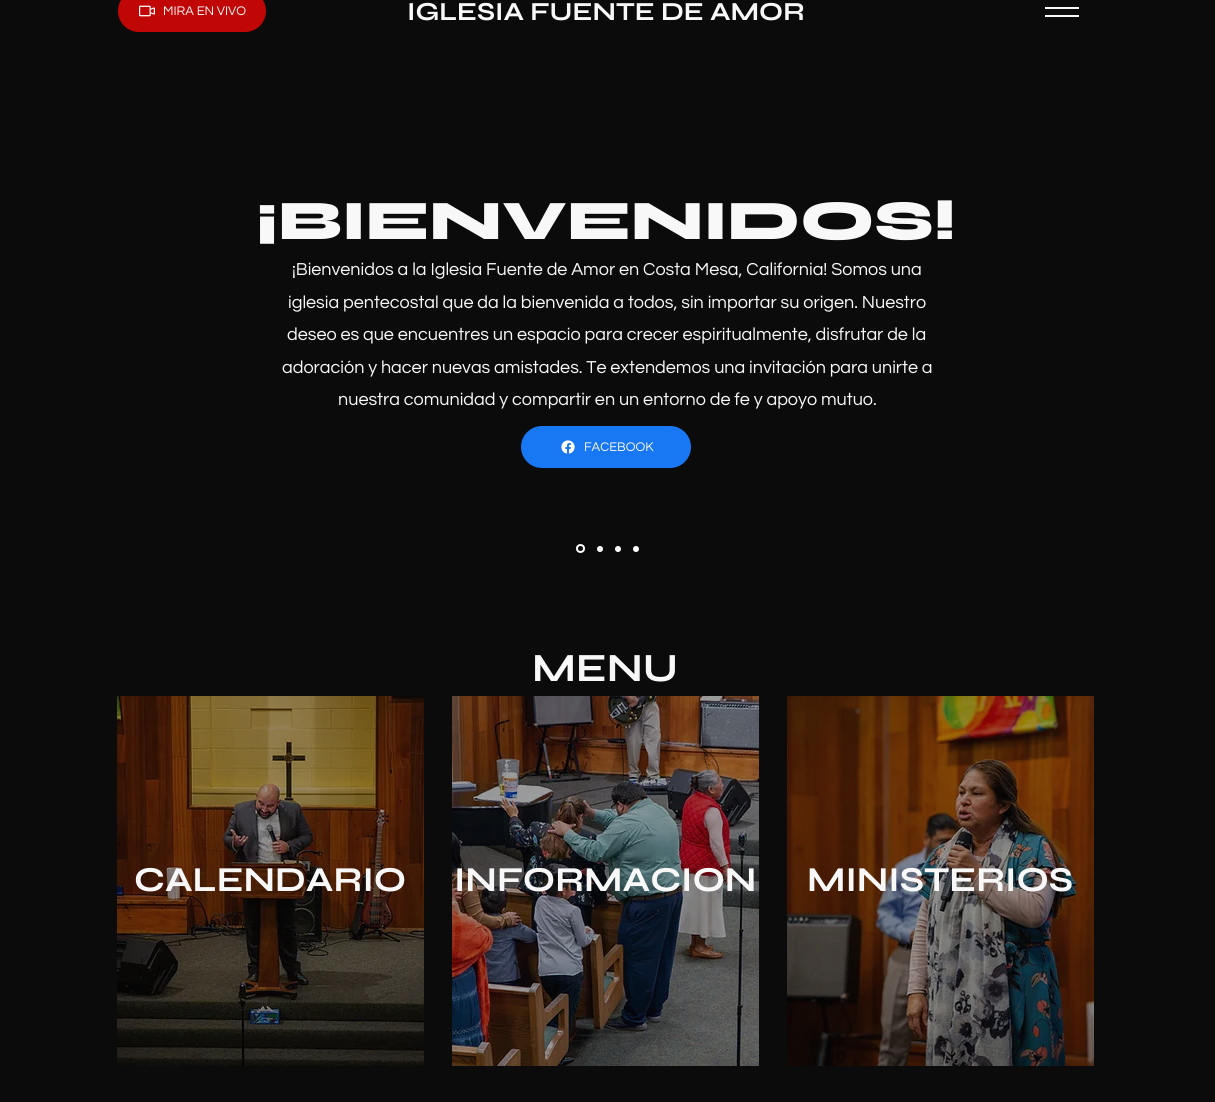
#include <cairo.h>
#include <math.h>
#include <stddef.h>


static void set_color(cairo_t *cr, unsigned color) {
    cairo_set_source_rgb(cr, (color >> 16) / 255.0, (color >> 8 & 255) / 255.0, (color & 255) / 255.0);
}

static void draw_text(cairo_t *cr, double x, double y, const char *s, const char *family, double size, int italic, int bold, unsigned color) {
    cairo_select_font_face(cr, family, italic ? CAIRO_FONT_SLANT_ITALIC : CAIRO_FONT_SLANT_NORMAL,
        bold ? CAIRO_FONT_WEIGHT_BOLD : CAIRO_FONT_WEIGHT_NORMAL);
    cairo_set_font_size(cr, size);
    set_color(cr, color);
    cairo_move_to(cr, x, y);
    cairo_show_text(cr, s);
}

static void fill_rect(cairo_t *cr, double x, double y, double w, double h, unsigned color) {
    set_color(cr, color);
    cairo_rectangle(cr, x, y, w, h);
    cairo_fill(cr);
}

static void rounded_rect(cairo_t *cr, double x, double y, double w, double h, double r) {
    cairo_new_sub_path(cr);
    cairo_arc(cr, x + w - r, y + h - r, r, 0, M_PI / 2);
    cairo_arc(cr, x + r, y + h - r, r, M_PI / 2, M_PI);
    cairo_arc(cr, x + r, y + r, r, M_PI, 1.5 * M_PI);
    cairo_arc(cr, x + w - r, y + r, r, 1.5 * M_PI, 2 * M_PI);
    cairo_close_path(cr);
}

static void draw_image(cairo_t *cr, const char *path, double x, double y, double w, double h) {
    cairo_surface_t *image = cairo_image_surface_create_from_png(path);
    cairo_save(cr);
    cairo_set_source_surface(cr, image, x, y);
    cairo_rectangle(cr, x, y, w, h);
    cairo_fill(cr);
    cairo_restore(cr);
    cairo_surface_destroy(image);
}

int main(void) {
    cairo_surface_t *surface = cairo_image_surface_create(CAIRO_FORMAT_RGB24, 1215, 1102);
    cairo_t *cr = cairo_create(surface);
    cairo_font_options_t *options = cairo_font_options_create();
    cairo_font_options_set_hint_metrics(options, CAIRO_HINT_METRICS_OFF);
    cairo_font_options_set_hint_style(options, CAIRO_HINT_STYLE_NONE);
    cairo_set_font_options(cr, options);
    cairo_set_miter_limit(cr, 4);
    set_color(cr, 0x0B0B0B);
    cairo_paint(cr);
    set_color(cr, 0xC10606);
    rounded_rect(cr, 118, -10, 148, 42, 21);
    cairo_fill(cr);
    draw_image(cr, "assets/img1.png", 139, 5, 16, 12);
    draw_text(cr, 163, 15, "MIRA EN VIVO", "Questrial", 13, 0, 0, 0xF8F8F8);
    draw_text(cr, 407, 20, "IGLESIA FUENTE DE AMOR", "Syne", 26, 0, 1, 0xF8F8F8);
    fill_rect(cr, 1045, 7, 34, 2, 0xF8F8F8);
    fill_rect(cr, 1045, 15, 34, 2, 0xF8F8F8);
    draw_text(cr, 256, 239, "¡BIENVENIDOS!", "Syne ExtraBold", 56, 0, 0, 0xF8F8F8);
    draw_text(cr, 292, 275, "¡Bienvenidos a la Iglesia Fuente de Amor en Costa Mesa, California! Somos una", "Questrial", 18, 0, 0, 0xF8F8F8);
    draw_text(cr, 288, 308, "iglesia pentecostal que da la bienvenida a todos, sin importar su origen. Nuestro", "Questrial", 18, 0, 0, 0xF8F8F8);
    draw_text(cr, 287, 340, "deseo es que encuentres un espacio para crecer espiritualmente, disfrutar de la", "Questrial", 18, 0, 0, 0xF8F8F8);
    draw_text(cr, 282, 373, "adoración y hacer nuevas amistades. Te extendemos una invitación para unirte a", "Questrial", 18, 0, 0, 0xF8F8F8);
    draw_text(cr, 338, 405, "nuestra comunidad y compartir en un entorno de fe y apoyo mutuo.", "Questrial", 18, 0, 0, 0xF8F8F8);
    set_color(cr, 0x1877F2);
    rounded_rect(cr, 521, 426, 170, 42, 21);
    cairo_fill(cr);
    draw_image(cr, "assets/img2.png", 561, 440, 14, 14);
    draw_text(cr, 584, 451, "FACEBOOK", "Questrial", 13, 0, 0, 0xF8F8F8);
    cairo_new_path(cr);
    cairo_arc(cr, 580.5, 548.5, 3.5, 0, 2 * M_PI);
    set_color(cr, 0xFFFFFF);
    cairo_stroke(cr);
    cairo_arc(cr, 600, 549, 3, 0, 2 * M_PI);
    cairo_fill(cr);
    cairo_arc(cr, 618, 549, 3, 0, 2 * M_PI);
    cairo_fill(cr);
    cairo_arc(cr, 636, 549, 3, 0, 2 * M_PI);
    cairo_fill(cr);
    draw_text(cr, 532, 681, "MENU", "Syne", 40, 0, 1, 0xF8F8F8);
    draw_image(cr, "assets/img3.png", 117, 696, 307, 370);
    draw_text(cr, 134, 891, "CALENDARIO", "Syne", 35, 0, 1, 0xF8F8F8);
    draw_image(cr, "assets/img4.png", 452, 696, 307, 370);
    draw_text(cr, 454, 891, "INFORMACION", "Syne", 35, 0, 1, 0xF8F8F8);
    draw_image(cr, "assets/img5.png", 787, 696, 307, 370);
    draw_text(cr, 807, 891, "MINISTERIOS", "Syne", 35, 0, 1, 0xF8F8F8);
    cairo_surface_write_to_png(surface, "output.png");
    cairo_font_options_destroy(options);
    cairo_destroy(cr);
    cairo_surface_destroy(surface);
    return 0;
}
